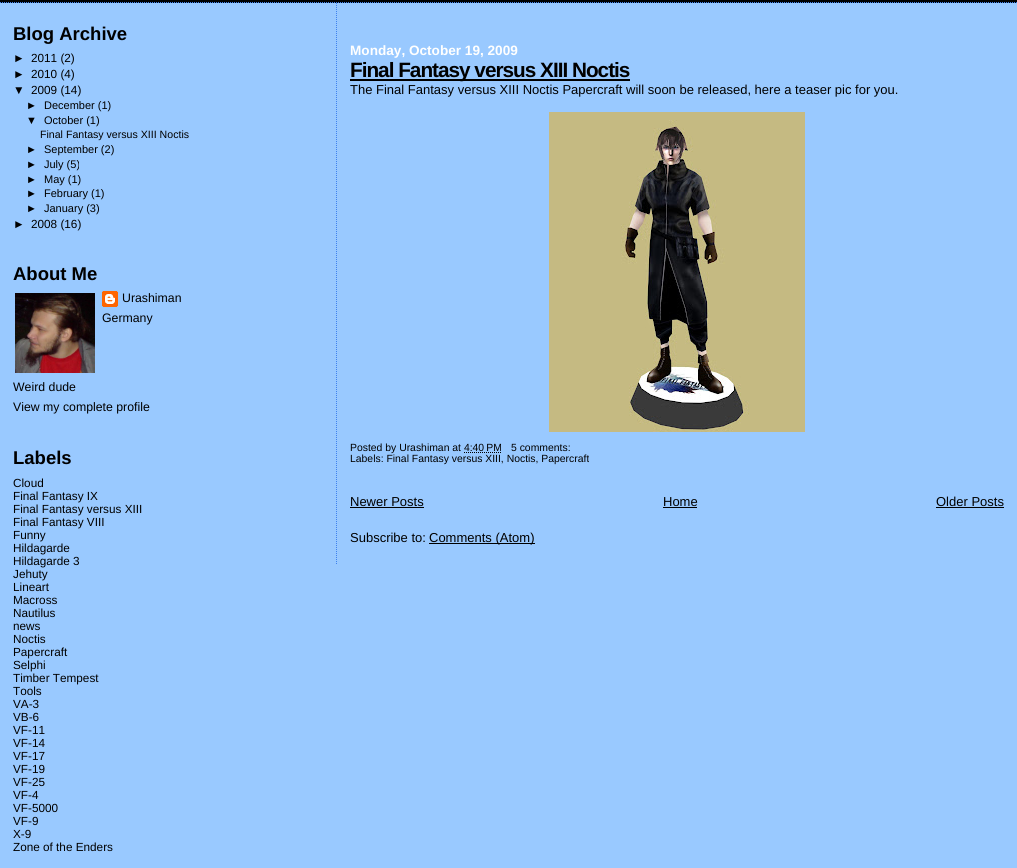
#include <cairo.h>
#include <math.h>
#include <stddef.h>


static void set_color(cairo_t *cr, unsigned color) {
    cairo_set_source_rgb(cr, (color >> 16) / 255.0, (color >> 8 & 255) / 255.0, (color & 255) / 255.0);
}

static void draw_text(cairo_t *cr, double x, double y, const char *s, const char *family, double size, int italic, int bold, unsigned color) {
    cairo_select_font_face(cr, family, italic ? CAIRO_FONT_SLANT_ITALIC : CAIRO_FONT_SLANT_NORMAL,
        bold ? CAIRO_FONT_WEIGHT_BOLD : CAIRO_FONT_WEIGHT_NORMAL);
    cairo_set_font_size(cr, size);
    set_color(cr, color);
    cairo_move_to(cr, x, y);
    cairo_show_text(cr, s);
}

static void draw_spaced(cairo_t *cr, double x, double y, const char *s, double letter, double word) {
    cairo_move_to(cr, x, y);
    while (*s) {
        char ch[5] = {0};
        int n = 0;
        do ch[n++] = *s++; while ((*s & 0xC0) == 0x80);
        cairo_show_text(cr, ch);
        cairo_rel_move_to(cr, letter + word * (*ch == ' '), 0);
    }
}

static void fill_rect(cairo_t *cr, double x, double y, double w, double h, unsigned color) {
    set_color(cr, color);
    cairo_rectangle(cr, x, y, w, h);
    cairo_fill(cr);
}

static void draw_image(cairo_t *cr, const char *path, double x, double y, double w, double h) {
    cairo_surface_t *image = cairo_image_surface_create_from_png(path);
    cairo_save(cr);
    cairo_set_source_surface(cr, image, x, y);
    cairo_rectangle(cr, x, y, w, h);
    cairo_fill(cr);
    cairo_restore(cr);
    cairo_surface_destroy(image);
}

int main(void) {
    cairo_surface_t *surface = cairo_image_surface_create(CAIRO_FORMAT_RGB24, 1017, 868);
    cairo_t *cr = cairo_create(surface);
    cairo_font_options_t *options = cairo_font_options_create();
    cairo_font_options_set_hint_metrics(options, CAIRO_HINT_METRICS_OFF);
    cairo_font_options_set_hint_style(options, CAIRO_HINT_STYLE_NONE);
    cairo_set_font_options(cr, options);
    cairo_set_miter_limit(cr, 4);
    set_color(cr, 0x99C9FF);
    cairo_paint(cr);
    fill_rect(cr, 0, 0, 1017, 3, 0x000000);
    cairo_new_path(cr);
    cairo_move_to(cr, 0, 2.5);
    cairo_line_to(cr, 1017, 2.5);
    set_color(cr, 0x3D81EE);
    cairo_set_line_width(cr, 1);
    cairo_set_dash(cr, (double[]){1, 1}, 2, 0);
    cairo_stroke(cr);
    draw_text(cr, 13, 40, "Blog Archive", "Liberation Sans", 18.5, 0, 1, 0x000000);
    draw_text(cr, 13, 62, "►", "Liberation Sans", 11.75, 0, 0, 0x000000);
    draw_text(cr, 31, 62, "2011 (2)", "Liberation Sans", 11.75, 0, 0, 0x000000);
    draw_text(cr, 13, 78, "►", "Liberation Sans", 11.75, 0, 0, 0x000000);
    draw_text(cr, 31, 78, "2010 (4)", "Liberation Sans", 11.75, 0, 0, 0x000000);
    draw_text(cr, 13, 94, "▼", "Liberation Sans", 11.75, 0, 0, 0x000000);
    draw_text(cr, 31, 94, "2009 (14)", "Liberation Sans", 11.75, 0, 0, 0x000000);
    draw_text(cr, 26, 109, "►", "Liberation Sans", 11, 0, 0, 0x000000);
    draw_text(cr, 44, 109, "December (1)", "Liberation Sans", 11, 0, 0, 0x000000);
    draw_text(cr, 26, 124, "▼", "Liberation Sans", 11, 0, 0, 0x000000);
    draw_text(cr, 44, 124, "October (1)", "Liberation Sans", 11, 0, 0, 0x000000);
    draw_text(cr, 40, 138, "Final Fantasy versus XIII Noctis", "Liberation Sans", 10.6, 0, 0, 0x000000);
    draw_text(cr, 26, 153, "►", "Liberation Sans", 11, 0, 0, 0x000000);
    draw_text(cr, 44, 153, "September (2)", "Liberation Sans", 11, 0, 0, 0x000000);
    draw_text(cr, 26, 168, "►", "Liberation Sans", 11, 0, 0, 0x000000);
    draw_text(cr, 44, 168, "July (5)", "Liberation Sans", 11, 0, 0, 0x000000);
    draw_text(cr, 26, 183, "►", "Liberation Sans", 11, 0, 0, 0x000000);
    draw_text(cr, 44, 183, "May (1)", "Liberation Sans", 11, 0, 0, 0x000000);
    draw_text(cr, 26, 197, "►", "Liberation Sans", 11, 0, 0, 0x000000);
    draw_text(cr, 44, 197, "February (1)", "Liberation Sans", 11, 0, 0, 0x000000);
    draw_text(cr, 26, 212, "►", "Liberation Sans", 11, 0, 0, 0x000000);
    draw_text(cr, 44, 212, "January (3)", "Liberation Sans", 11, 0, 0, 0x000000);
    draw_text(cr, 13, 228, "►", "Liberation Sans", 11.75, 0, 0, 0x000000);
    draw_text(cr, 31, 228, "2008 (16)", "Liberation Sans", 11.75, 0, 0, 0x000000);
    draw_text(cr, 13, 280, "About Me", "Liberation Sans", 18.5, 0, 1, 0x000000);
    draw_image(cr, "assets/img1.png", 102, 291, 16, 16);
    draw_text(cr, 122, 302, "Urashiman", "Liberation Sans", 12.3, 0, 0, 0x000000);
    draw_text(cr, 102, 322, "Germany", "Liberation Sans", 12.3, 0, 0, 0x000000);
    draw_text(cr, 13, 391, "Weird dude", "Liberation Sans", 12.3, 0, 0, 0x000000);
    draw_image(cr, "assets/img2.png", 15, 293, 80, 80);
    draw_text(cr, 13, 411, "View my complete profile", "Liberation Sans", 12.3, 0, 0, 0x000000);
    draw_text(cr, 13, 464, "Labels", "Liberation Sans", 18.5, 0, 1, 0x000000);
    draw_text(cr, 13, 487, "Cloud", "Liberation Sans", 11.75, 0, 0, 0x000000);
    draw_text(cr, 13, 500, "Final Fantasy IX", "Liberation Sans", 11.75, 0, 0, 0x000000);
    draw_text(cr, 13, 513, "Final Fantasy versus XIII", "Liberation Sans", 11.75, 0, 0, 0x000000);
    draw_text(cr, 13, 526, "Final Fantasy VIII", "Liberation Sans", 11.75, 0, 0, 0x000000);
    draw_text(cr, 13, 539, "Funny", "Liberation Sans", 11.75, 0, 0, 0x000000);
    draw_text(cr, 13, 552, "Hildagarde", "Liberation Sans", 11.75, 0, 0, 0x000000);
    draw_text(cr, 13, 565, "Hildagarde 3", "Liberation Sans", 11.75, 0, 0, 0x000000);
    draw_text(cr, 13, 578, "Jehuty", "Liberation Sans", 11.75, 0, 0, 0x000000);
    draw_text(cr, 13, 591, "Lineart", "Liberation Sans", 11.75, 0, 0, 0x000000);
    draw_text(cr, 13, 604, "Macross", "Liberation Sans", 11.75, 0, 0, 0x000000);
    draw_text(cr, 13, 617, "Nautilus", "Liberation Sans", 11.75, 0, 0, 0x000000);
    draw_text(cr, 13, 630, "news", "Liberation Sans", 11.75, 0, 0, 0x000000);
    draw_text(cr, 13, 643, "Noctis", "Liberation Sans", 11.75, 0, 0, 0x000000);
    draw_text(cr, 13, 656, "Papercraft", "Liberation Sans", 11.75, 0, 0, 0x000000);
    draw_text(cr, 13, 669, "Selphi", "Liberation Sans", 11.75, 0, 0, 0x000000);
    draw_text(cr, 13, 682, "Timber Tempest", "Liberation Sans", 11.75, 0, 0, 0x000000);
    draw_text(cr, 13, 695, "Tools", "Liberation Sans", 11.75, 0, 0, 0x000000);
    draw_text(cr, 13, 708, "VA-3", "Liberation Sans", 11.75, 0, 0, 0x000000);
    draw_text(cr, 13, 721, "VB-6", "Liberation Sans", 11.75, 0, 0, 0x000000);
    draw_text(cr, 13, 734, "VF-11", "Liberation Sans", 11.75, 0, 0, 0x000000);
    draw_text(cr, 13, 747, "VF-14", "Liberation Sans", 11.75, 0, 0, 0x000000);
    draw_text(cr, 13, 760, "VF-17", "Liberation Sans", 11.75, 0, 0, 0x000000);
    draw_text(cr, 13, 773, "VF-19", "Liberation Sans", 11.75, 0, 0, 0x000000);
    draw_text(cr, 13, 786, "VF-25", "Liberation Sans", 11.75, 0, 0, 0x000000);
    draw_text(cr, 13, 799, "VF-4", "Liberation Sans", 11.75, 0, 0, 0x000000);
    draw_text(cr, 13, 812, "VF-5000", "Liberation Sans", 11.75, 0, 0, 0x000000);
    draw_text(cr, 13, 825, "VF-9", "Liberation Sans", 11.75, 0, 0, 0x000000);
    draw_text(cr, 13, 838, "X-9", "Liberation Sans", 11.75, 0, 0, 0x000000);
    draw_text(cr, 13, 851, "Zone of the Enders", "Liberation Sans", 11.75, 0, 0, 0x000000);
    cairo_new_path(cr);
    cairo_move_to(cr, 336.5, 3);
    cairo_line_to(cr, 336.5, 565);
    set_color(cr, 0x3D81EE);
    cairo_stroke(cr);
    draw_text(cr, 350, 55, "Monday, October 19, 2009", "Liberation Sans", 13.6, 0, 1, 0xFFFFFF);
    fill_rect(cr, 350, 79, 280, 2, 0x000000);
    cairo_set_font_size(cr, 20.75);
    draw_spaced(cr, 350, 77, "Final Fantasy versus XIII Noctis", -1, 0);
    draw_text(cr, 350, 94, "The Final Fantasy versus XIII Noctis Papercraft will soon be released, here a teaser pic for you.", "Liberation Sans", 13, 0, 0, 0x000000);
    draw_image(cr, "assets/img3.png", 549, 112, 256, 320);
    draw_text(cr, 350, 451, "Posted by Urashiman at 4:40 PM", "Liberation Sans", 10.4, 0, 0, 0x000000);
    draw_text(cr, 511, 451, "5 comments:", "Liberation Sans", 10.4, 0, 0, 0x000000);
    cairo_new_path(cr);
    cairo_move_to(cr, 464, 452.5);
    cairo_line_to(cr, 501.5, 452.5);
    cairo_stroke(cr);
    draw_text(cr, 350, 462, "Labels: Final Fantasy versus XIII, Noctis, Papercraft", "Liberation Sans", 10.4, 0, 0, 0x000000);
    draw_text(cr, 350, 506, "Newer Posts", "Liberation Sans", 13, 0, 0, 0x000000);
    fill_rect(cr, 350, 507, 74, 1, 0x000000);
    draw_text(cr, 663, 506, "Home", "Liberation Sans", 13, 0, 0, 0x000000);
    fill_rect(cr, 663, 507, 34, 1, 0x000000);
    draw_text(cr, 936, 506, "Older Posts", "Liberation Sans", 13, 0, 0, 0x000000);
    fill_rect(cr, 936, 507, 68, 1, 0x000000);
    draw_text(cr, 350, 542, "Subscribe to:", "Liberation Sans", 13, 0, 0, 0x000000);
    fill_rect(cr, 429, 543, 106, 1, 0x000000);
    draw_text(cr, 429, 542, "Comments (Atom)", "Liberation Sans", 13, 0, 0, 0x000000);
    cairo_surface_write_to_png(surface, "output.png");
    cairo_font_options_destroy(options);
    cairo_destroy(cr);
    cairo_surface_destroy(surface);
    return 0;
}
